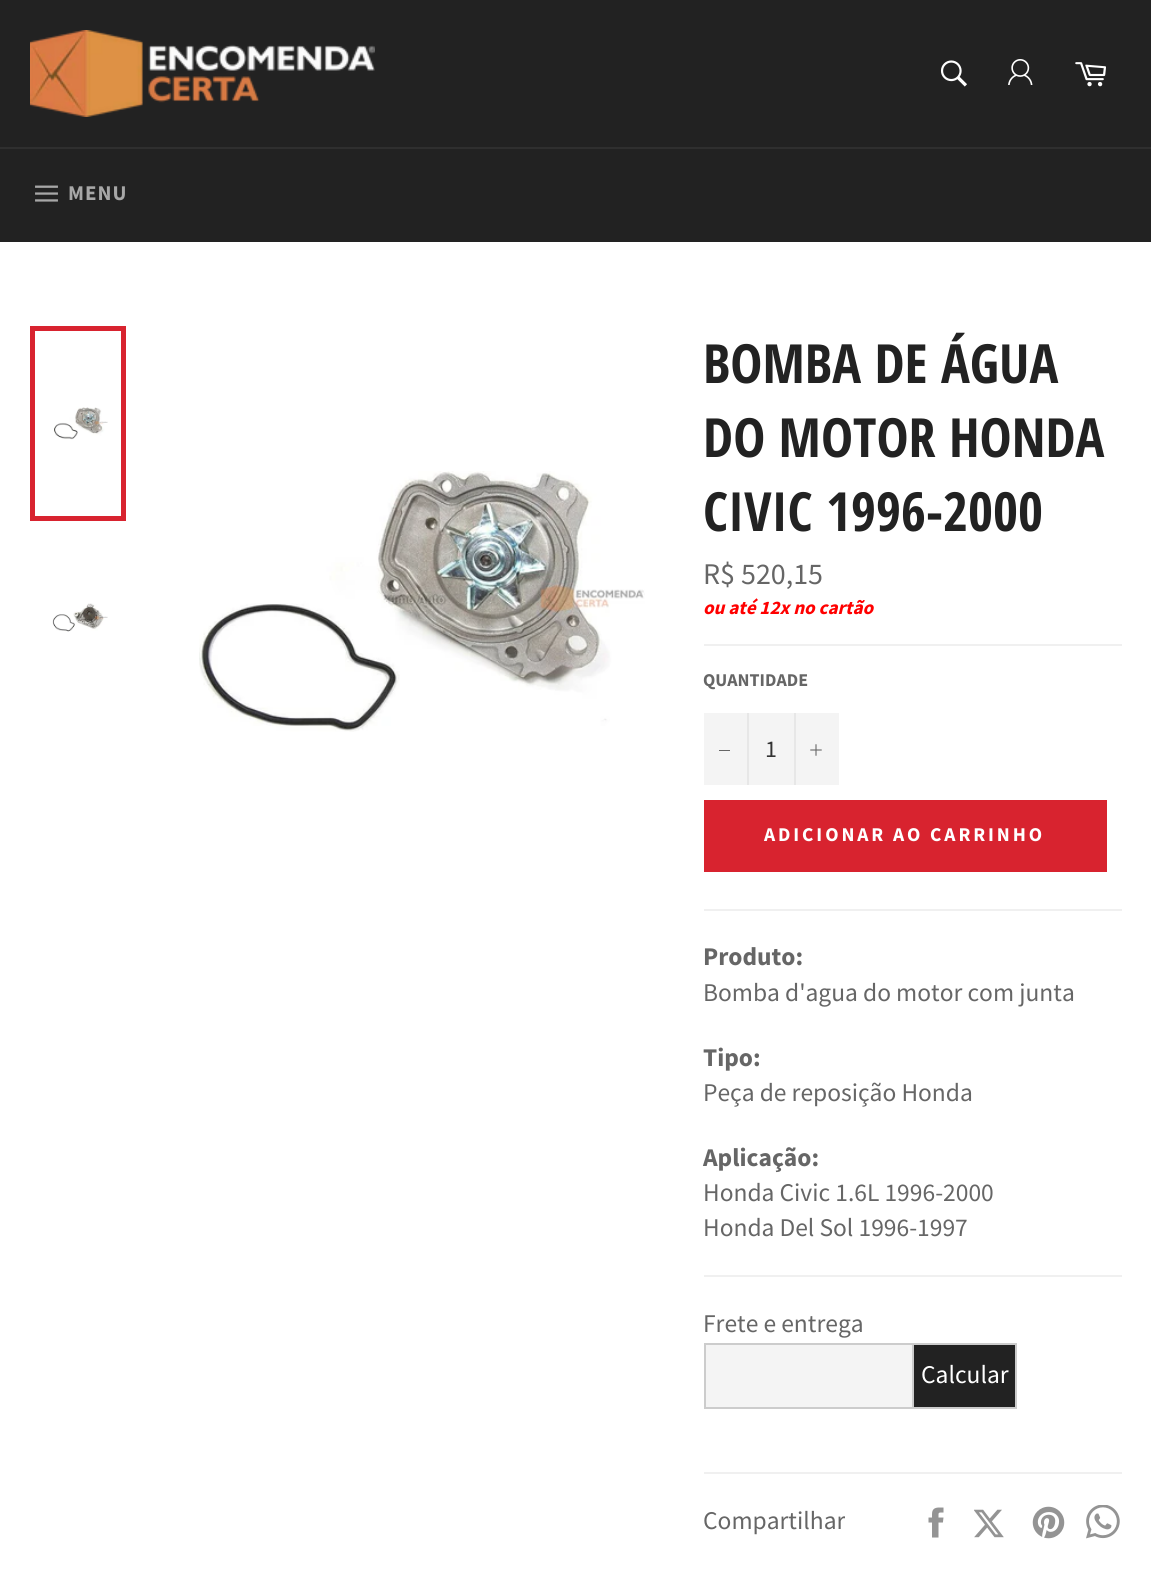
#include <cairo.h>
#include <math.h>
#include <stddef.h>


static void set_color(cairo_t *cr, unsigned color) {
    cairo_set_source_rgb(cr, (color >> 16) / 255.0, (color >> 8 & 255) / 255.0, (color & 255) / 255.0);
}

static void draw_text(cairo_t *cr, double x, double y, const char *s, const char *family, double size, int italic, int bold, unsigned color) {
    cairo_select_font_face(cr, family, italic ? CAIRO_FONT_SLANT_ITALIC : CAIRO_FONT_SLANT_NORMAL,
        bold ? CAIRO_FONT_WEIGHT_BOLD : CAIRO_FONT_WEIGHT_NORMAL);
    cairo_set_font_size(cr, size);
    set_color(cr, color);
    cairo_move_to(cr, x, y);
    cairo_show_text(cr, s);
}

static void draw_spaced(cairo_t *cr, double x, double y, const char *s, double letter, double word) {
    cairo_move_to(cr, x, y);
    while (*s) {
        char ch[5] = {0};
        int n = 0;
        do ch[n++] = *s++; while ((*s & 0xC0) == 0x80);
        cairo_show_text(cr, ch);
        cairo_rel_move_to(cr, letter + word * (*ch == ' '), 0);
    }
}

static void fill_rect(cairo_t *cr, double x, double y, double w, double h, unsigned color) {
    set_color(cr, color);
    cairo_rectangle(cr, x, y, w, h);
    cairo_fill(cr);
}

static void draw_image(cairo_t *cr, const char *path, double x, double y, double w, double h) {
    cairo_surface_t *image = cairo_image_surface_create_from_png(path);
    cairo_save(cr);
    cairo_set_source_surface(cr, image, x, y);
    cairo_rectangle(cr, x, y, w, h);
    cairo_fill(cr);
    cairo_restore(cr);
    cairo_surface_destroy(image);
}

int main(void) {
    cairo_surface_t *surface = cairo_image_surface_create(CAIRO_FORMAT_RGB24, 1151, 1579);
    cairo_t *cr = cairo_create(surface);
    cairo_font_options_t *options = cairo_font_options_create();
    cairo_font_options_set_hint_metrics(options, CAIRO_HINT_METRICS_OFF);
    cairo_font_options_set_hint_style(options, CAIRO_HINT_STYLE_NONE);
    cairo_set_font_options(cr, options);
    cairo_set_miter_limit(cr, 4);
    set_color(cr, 0x222222);
    cairo_paint(cr);
    draw_image(cr, "assets/img1.png", 30, 30, 345, 87);
    draw_image(cr, "assets/img2.png", 940, 60, 27, 27);
    draw_image(cr, "assets/img3.png", 1008, 59, 25, 26);
    draw_image(cr, "assets/img4.png", 1075, 62, 31, 25);
    fill_rect(cr, 0, 147, 1151, 2, 0x2F2F2F);
    draw_image(cr, "assets/img5.png", 35, 185, 23, 17);
    cairo_select_font_face(cr, "Source Sans Pro", CAIRO_FONT_SLANT_NORMAL, CAIRO_FONT_WEIGHT_BOLD);
    cairo_set_font_size(cr, 21);
    set_color(cr, 0xA7A7A7);
    draw_spaced(cr, 68, 200, "MENU", 1, 0);
    fill_rect(cr, 0, 242, 1151, 1337, 0xFFFFFF);
    draw_image(cr, "assets/img6.png", 54, 407, 54, 33);
    cairo_rectangle(cr, 32.5, 328.5, 91, 190);
    set_color(cr, 0xD8232F);
    cairo_set_line_width(cr, 5);
    cairo_stroke(cr);
    draw_image(cr, "assets/img7.png", 52, 603, 56, 29);
    draw_image(cr, "assets/img8.png", 199, 471, 446, 261);
    draw_text(cr, 703, 383, "BOMBA DE ÁGUA", "Open Sans Condensed", 54, 0, 1, 0x222222);
    draw_text(cr, 703, 457, "DO MOTOR HONDA", "Open Sans Condensed", 54, 0, 1, 0x222222);
    draw_text(cr, 703, 531, "CIVIC 1996-2000", "Open Sans Condensed", 54, 0, 1, 0x222222);
    draw_text(cr, 703, 584, "R$ 520,15", "Source Sans Pro", 30, 0, 0, 0x666666);
    draw_text(cr, 703, 614, "ou até 12x no cartão", "Source Sans Pro", 19.1, 1, 1, 0xFF0000);
    fill_rect(cr, 704, 644, 418, 2, 0xF0F0F0);
    draw_text(cr, 703, 686, "QUANTIDADE", "Source Sans Pro", 18, 0, 1, 0x666666);
    fill_rect(cr, 704, 713, 135, 72, 0xF4F4F4);
    fill_rect(cr, 747, 713, 2, 72, 0xE7E7E7);
    fill_rect(cr, 719, 750, 11, 1, 0x666666);
    draw_text(cr, 765, 757, "1", "Source Sans Pro", 24, 0, 0, 0x333333);
    fill_rect(cr, 794, 713, 2, 72, 0xE7E7E7);
    draw_image(cr, "assets/img9.png", 810, 744, 12, 12);
    fill_rect(cr, 704, 800, 403, 72, 0xD8232F);
    cairo_select_font_face(cr, "Source Sans Pro", CAIRO_FONT_SLANT_NORMAL, CAIRO_FONT_WEIGHT_BOLD);
    cairo_set_font_size(cr, 19.5);
    set_color(cr, 0xFFFFFF);
    draw_spaced(cr, 764, 841, "ADICIONAR AO CARRINHO", 2.9, 0);
    fill_rect(cr, 704, 909, 418, 2, 0xF0F0F0);
    draw_text(cr, 703, 965, "Produto:", "Source Sans Pro", 25.5, 0, 1, 0x666666);
    draw_text(cr, 703, 1001, "Bomba d'agua do motor com junta", "Source Sans Pro", 25.5, 0, 0, 0x666666);
    draw_text(cr, 703, 1066, "Tipo:", "Source Sans Pro", 25.5, 0, 1, 0x666666);
    draw_text(cr, 703, 1101, "Peça de reposição Honda", "Source Sans Pro", 25.5, 0, 0, 0x666666);
    draw_text(cr, 703, 1166, "Aplicação:", "Source Sans Pro", 25.5, 0, 1, 0x666666);
    draw_text(cr, 703, 1201, "Honda Civic 1.6L 1996-2000", "Source Sans Pro", 25.5, 0, 0, 0x666666);
    draw_text(cr, 703, 1236, "Honda Del Sol 1996-1997", "Source Sans Pro", 25.5, 0, 0, 0x666666);
    fill_rect(cr, 704, 1275, 418, 2, 0xF0F0F0);
    draw_text(cr, 703, 1332, "Frete e entrega", "Source Sans Pro", 25.5, 0, 0, 0x666666);
    fill_rect(cr, 706, 1345, 206, 62, 0xF4F4F4);
    fill_rect(cr, 704, 1343, 208, 2, 0xCCCCCC);
    fill_rect(cr, 704, 1407, 208, 2, 0xCCCCCC);
    fill_rect(cr, 704, 1343, 2, 66, 0xCCCCCC);
    set_color(cr, 0x222222);
    cairo_rectangle(cr, 913, 1344, 103, 64);
    cairo_fill_preserve(cr);
    set_color(cr, 0xCCCCCC);
    cairo_set_line_width(cr, 2);
    cairo_stroke(cr);
    draw_text(cr, 921, 1383, "Calcular", "Source Sans Pro", 25.5, 0, 0, 0xFFFFFF);
    fill_rect(cr, 704, 1472, 418, 2, 0xF0F0F0);
    draw_text(cr, 703, 1529, "Compartilhar", "Source Sans Pro", 25.5, 0, 0, 0x666666);
    draw_image(cr, "assets/img10.png", 928, 1507, 16, 31);
    draw_image(cr, "assets/img11.png", 974, 1509, 30, 29);
    draw_image(cr, "assets/img12.png", 1032, 1506, 33, 33);
    draw_image(cr, "assets/img13.png", 1086, 1505, 34, 34);
    cairo_surface_write_to_png(surface, "output.png");
    cairo_font_options_destroy(options);
    cairo_destroy(cr);
    cairo_surface_destroy(surface);
    return 0;
}
